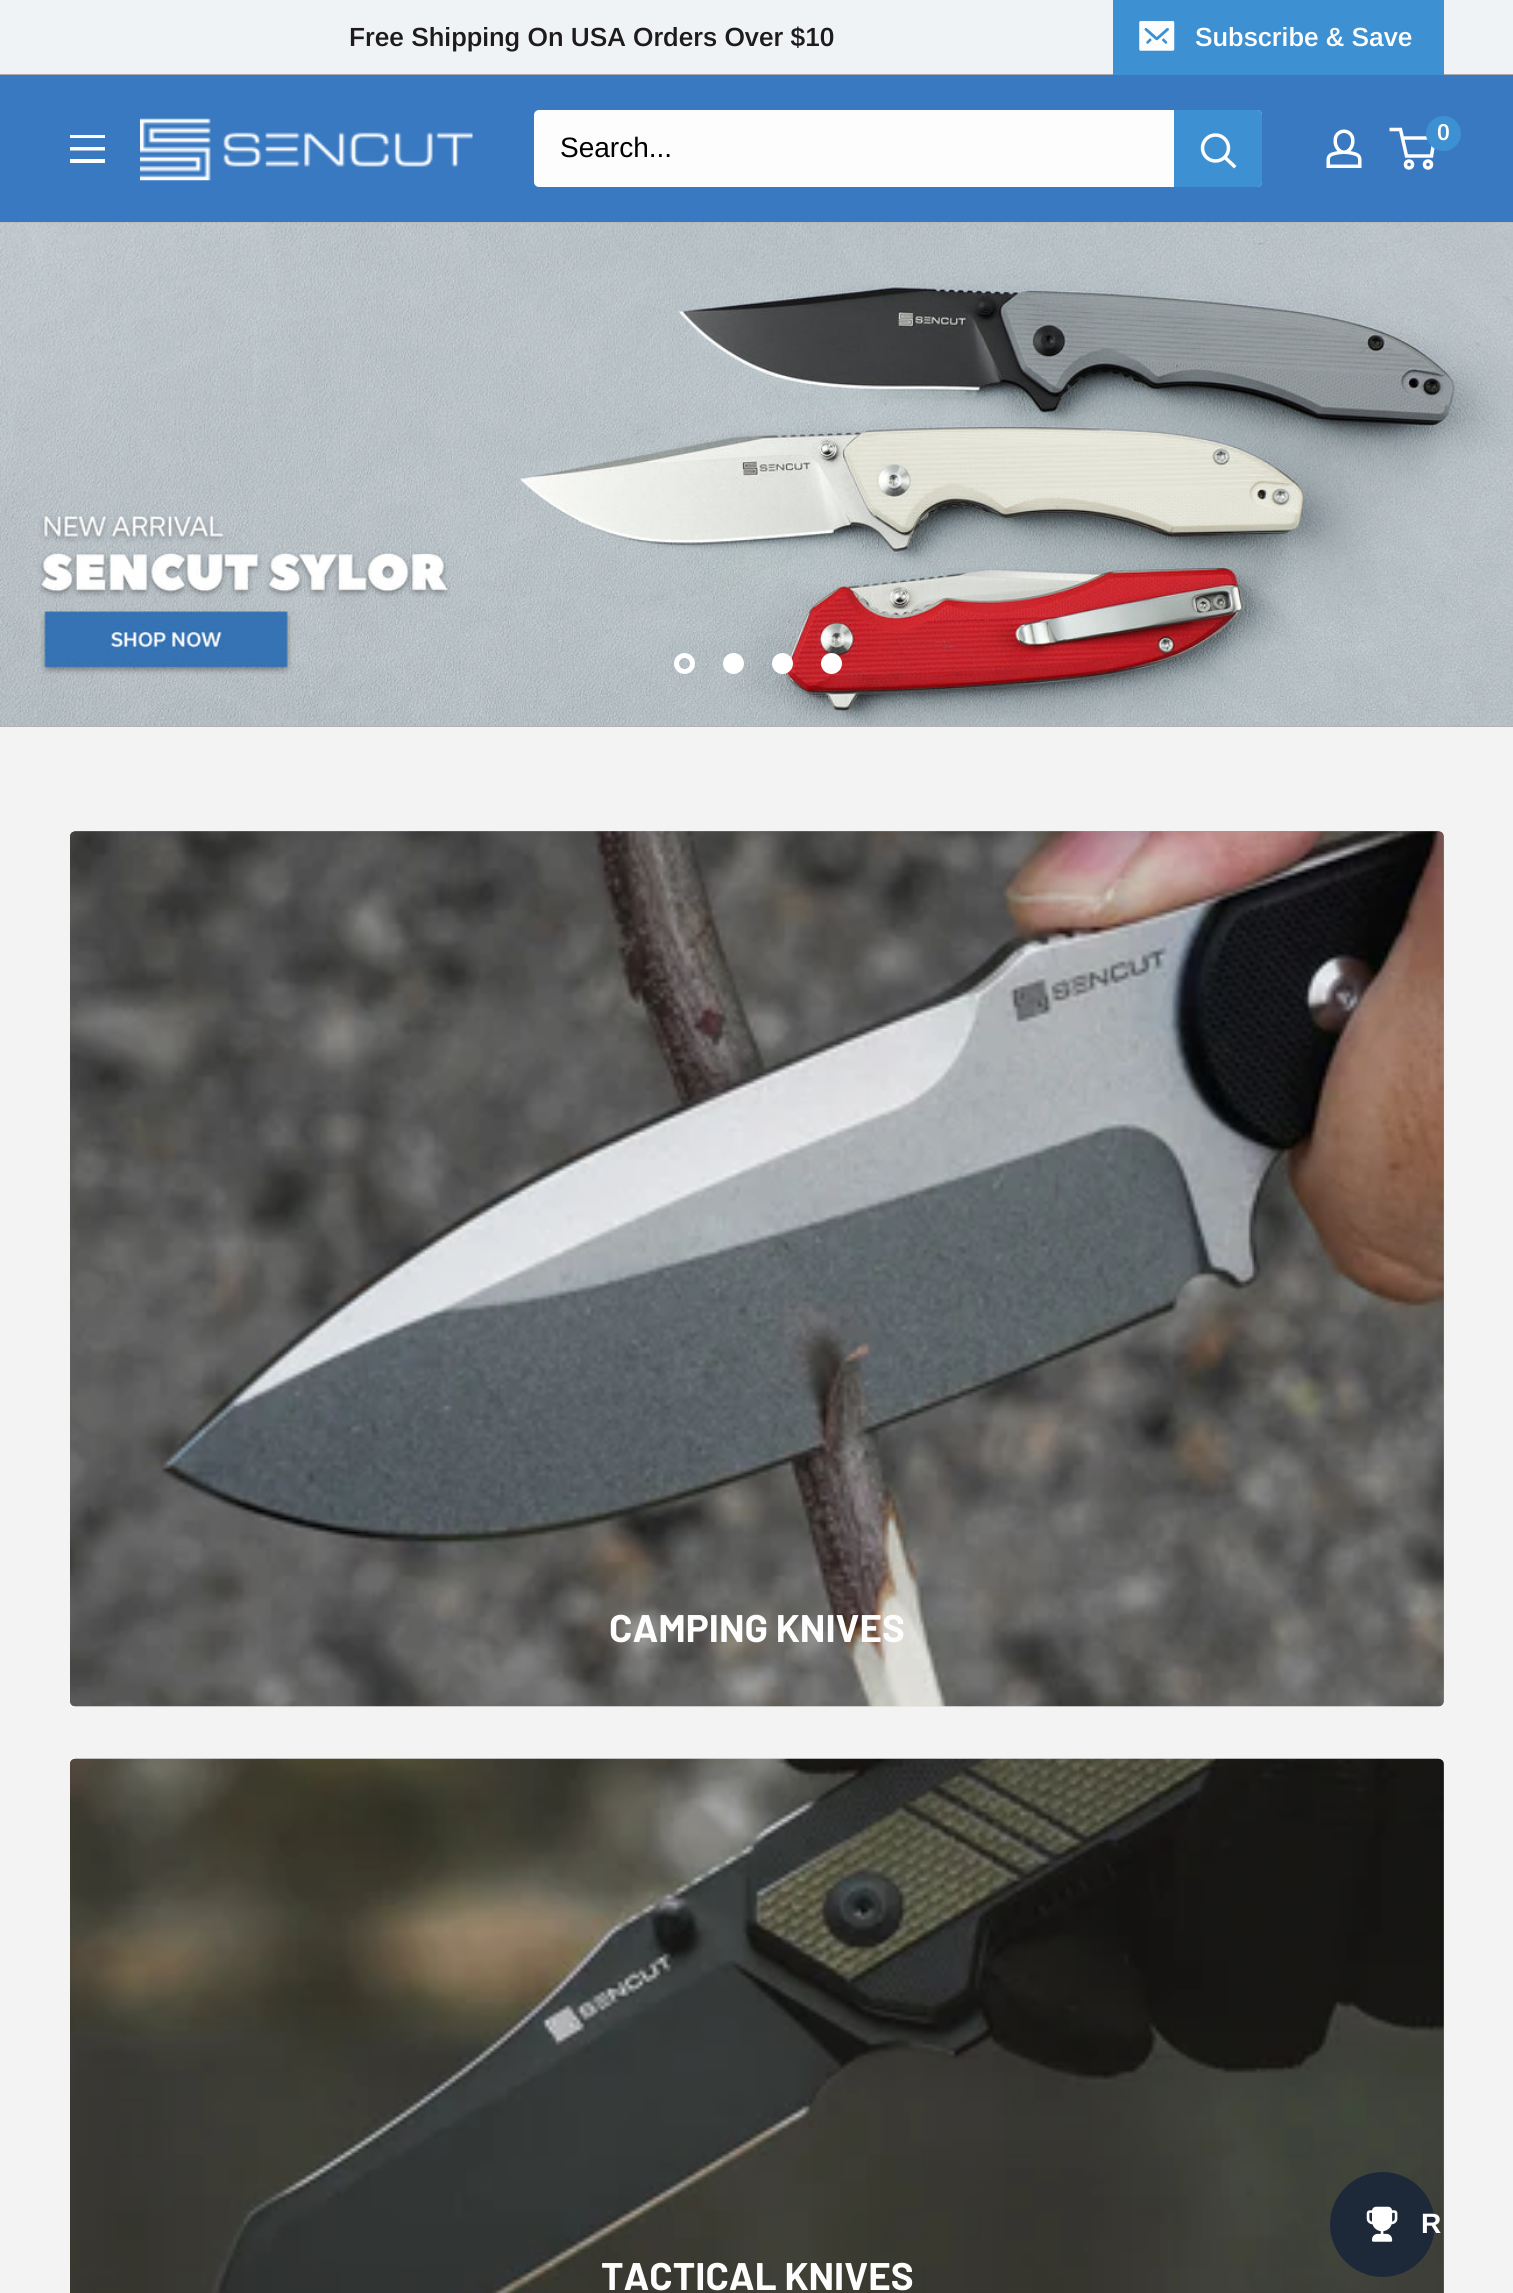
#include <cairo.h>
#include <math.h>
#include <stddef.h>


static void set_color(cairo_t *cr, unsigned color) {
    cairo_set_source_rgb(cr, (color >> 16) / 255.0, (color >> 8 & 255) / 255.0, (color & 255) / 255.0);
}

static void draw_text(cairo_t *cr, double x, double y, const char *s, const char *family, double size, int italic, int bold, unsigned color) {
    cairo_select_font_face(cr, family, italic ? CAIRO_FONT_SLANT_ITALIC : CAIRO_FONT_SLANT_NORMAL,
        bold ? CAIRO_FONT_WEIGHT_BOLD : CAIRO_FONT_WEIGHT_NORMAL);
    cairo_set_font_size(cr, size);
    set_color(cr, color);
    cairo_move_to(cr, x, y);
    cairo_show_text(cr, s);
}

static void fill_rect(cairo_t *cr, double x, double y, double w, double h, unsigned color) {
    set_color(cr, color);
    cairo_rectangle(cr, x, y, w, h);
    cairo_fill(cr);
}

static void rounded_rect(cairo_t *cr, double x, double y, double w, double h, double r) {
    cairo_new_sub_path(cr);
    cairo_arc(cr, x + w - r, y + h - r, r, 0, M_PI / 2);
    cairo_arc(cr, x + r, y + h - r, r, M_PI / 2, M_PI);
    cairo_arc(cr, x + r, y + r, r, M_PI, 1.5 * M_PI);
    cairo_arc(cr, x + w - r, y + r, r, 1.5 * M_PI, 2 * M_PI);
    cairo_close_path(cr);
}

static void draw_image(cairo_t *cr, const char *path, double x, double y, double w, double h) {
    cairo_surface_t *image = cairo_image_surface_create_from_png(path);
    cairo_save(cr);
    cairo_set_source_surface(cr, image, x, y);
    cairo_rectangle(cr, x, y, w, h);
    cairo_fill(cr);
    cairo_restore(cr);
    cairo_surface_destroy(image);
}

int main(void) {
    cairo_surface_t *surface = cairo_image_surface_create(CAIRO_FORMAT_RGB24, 1513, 2293);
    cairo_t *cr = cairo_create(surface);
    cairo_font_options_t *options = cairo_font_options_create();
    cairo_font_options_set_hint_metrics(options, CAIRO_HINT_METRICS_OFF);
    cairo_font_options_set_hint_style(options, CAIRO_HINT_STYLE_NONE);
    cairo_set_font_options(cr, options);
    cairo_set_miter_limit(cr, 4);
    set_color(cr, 0xF3F3F3);
    cairo_paint(cr);
    fill_rect(cr, 0, 0, 1513, 74, 0xF0F3F6);
    fill_rect(cr, 0, 74, 1513, 1, 0xA8AAAC);
    draw_text(cr, 349, 46, "Free Shipping On USA Orders Over $10", "Arimo SemiBold", 26.25, 0, 0, 0x1D1B1B);
    set_color(cr, 0x3D90D1);
    cairo_new_path(cr);
    cairo_move_to(cr, 1113, 74);
    cairo_line_to(cr, 1113, 75);
    cairo_line_to(cr, 1444, 75);
    cairo_line_to(cr, 1444, 2);
    cairo_line_to(cr, 1444, 74);
    cairo_close_path(cr);
    cairo_fill(cr);
    fill_rect(cr, 1113, 0, 331, 74, 0x3D90D1);
    draw_image(cr, "assets/img1.png", 1139, 21, 36, 30);
    draw_text(cr, 1195, 46, "Subscribe & Save", "Arimo SemiBold", 26.25, 0, 0, 0xFDFDFD);
    fill_rect(cr, 0, 75, 1513, 147, 0x3979C1);
    draw_image(cr, "assets/img2.png", 140, 118, 333, 63);
    draw_image(cr, "assets/img3.png", 1326, 129, 36, 39);
    cairo_arc(cr, 1409, 164.5, 3.5, 0, 2 * M_PI);
    set_color(cr, 0xFDFDFD);
    cairo_set_line_width(cr, 3.5);
    cairo_stroke(cr);
    cairo_arc(cr, 1428, 164.5, 3.5, 0, 2 * M_PI);
    cairo_stroke(cr);
    cairo_new_path(cr);
    cairo_move_to(cr, 1402.5, 138);
    cairo_line_to(cr, 1434.5, 138);
    cairo_line_to(cr, 1431.5, 156);
    cairo_line_to(cr, 1406.5, 156);
    cairo_line_to(cr, 1400.5, 129.5);
    cairo_line_to(cr, 1389.5, 129.5);
    cairo_stroke(cr);
    set_color(cr, 0x3D90D1);
    cairo_arc(cr, 1443.5, 133.5, 17.5, 0, 2 * M_PI);
    cairo_fill(cr);
    draw_text(cr, 1437, 140, "0", "Arimo SemiBold", 23, 0, 0, 0xFDFDFD);
    cairo_set_fill_rule(cr, CAIRO_FILL_RULE_EVEN_ODD);
    cairo_new_path(cr);
    cairo_move_to(cr, 70, 159);
    cairo_line_to(cr, 105, 159);
    cairo_line_to(cr, 105, 163);
    cairo_line_to(cr, 70, 163);
    cairo_close_path(cr);
    cairo_move_to(cr, 70, 135);
    cairo_line_to(cr, 105, 135);
    cairo_line_to(cr, 105, 138);
    cairo_line_to(cr, 70, 138);
    cairo_close_path(cr);
    cairo_move_to(cr, 70, 147);
    cairo_line_to(cr, 105, 147);
    cairo_line_to(cr, 105, 150.5);
    cairo_line_to(cr, 70, 150.5);
    cairo_close_path(cr);
    cairo_fill(cr);
    rounded_rect(cr, 534, 110, 728, 77, 5);
    cairo_fill(cr);
    draw_text(cr, 560, 157, "Search...", "Arimo", 28, 0, 0, 0x000000);
    set_color(cr, 0x3D90D1);
    cairo_new_path(cr);
    cairo_move_to(cr, 1174, 110);
    cairo_line_to(cr, 1257, 110);
    cairo_curve_to(cr, 1260, 110, 1262, 112, 1262, 115);
    cairo_line_to(cr, 1262, 182);
    cairo_curve_to(cr, 1262, 185, 1260, 187, 1257, 187);
    cairo_line_to(cr, 1174, 187);
    cairo_close_path(cr);
    cairo_fill(cr);
    cairo_new_path(cr);
    cairo_move_to(cr, 1234, 166);
    cairo_line_to(cr, 1225, 157.5);
    set_color(cr, 0xFDFDFD);
    cairo_set_line_cap(cr, CAIRO_LINE_CAP_SQUARE);
    cairo_stroke(cr);
    cairo_arc(cr, 1215.5, 148, 13, 0, 2 * M_PI);
    cairo_set_line_cap(cr, CAIRO_LINE_CAP_BUTT);
    cairo_stroke(cr);
    fill_rect(cr, 0, 222, 1513, 505, 0xB1B2B6);
    draw_image(cr, "assets/img4.png", 0, 222, 1513, 504);
    cairo_arc(cr, 684.5, 663.5, 8, 0, 2 * M_PI);
    set_color(cr, 0xFFFFFF);
    cairo_set_line_width(cr, 5);
    cairo_stroke(cr);
    cairo_arc(cr, 733.5, 663.5, 8, 0, 2 * M_PI);
    cairo_fill_preserve(cr);
    cairo_stroke(cr);
    cairo_arc(cr, 782.5, 663.5, 8, 0, 2 * M_PI);
    cairo_fill_preserve(cr);
    cairo_stroke(cr);
    cairo_arc(cr, 831.5, 663.5, 8, 0, 2 * M_PI);
    cairo_fill_preserve(cr);
    cairo_stroke(cr);
    draw_image(cr, "assets/img5.png", 70, 831, 1374, 876);
    draw_image(cr, "assets/img6.png", 70, 831, 1374, 876);
    draw_text(cr, 609, 1642, "CAMPING KNIVES", "Barlow", 38.5, 0, 1, 0xFDFDFD);
    draw_image(cr, "assets/img7.png", 70, 1758, 1374, 535);
    draw_image(cr, "assets/img8.png", 70, 1758, 1374, 535);
    draw_text(cr, 601, 2290, "TACTICAL KNIVES", "Barlow", 38.5, 0, 1, 0xFDFDFD);
    set_color(cr, 0x1D2939);
    cairo_new_path(cr);
    cairo_arc(cr, 1382.5, 2224.5, 52.5, 0, 2 * M_PI);
    cairo_fill(cr);
    draw_image(cr, "assets/img9.png", 1366, 2206, 32, 36);
    draw_text(cr, 1421, 2233, "R", "Liberation Sans", 28, 0, 1, 0xFDFDFD);
    cairo_surface_write_to_png(surface, "output.png");
    cairo_font_options_destroy(options);
    cairo_destroy(cr);
    cairo_surface_destroy(surface);
    return 0;
}
